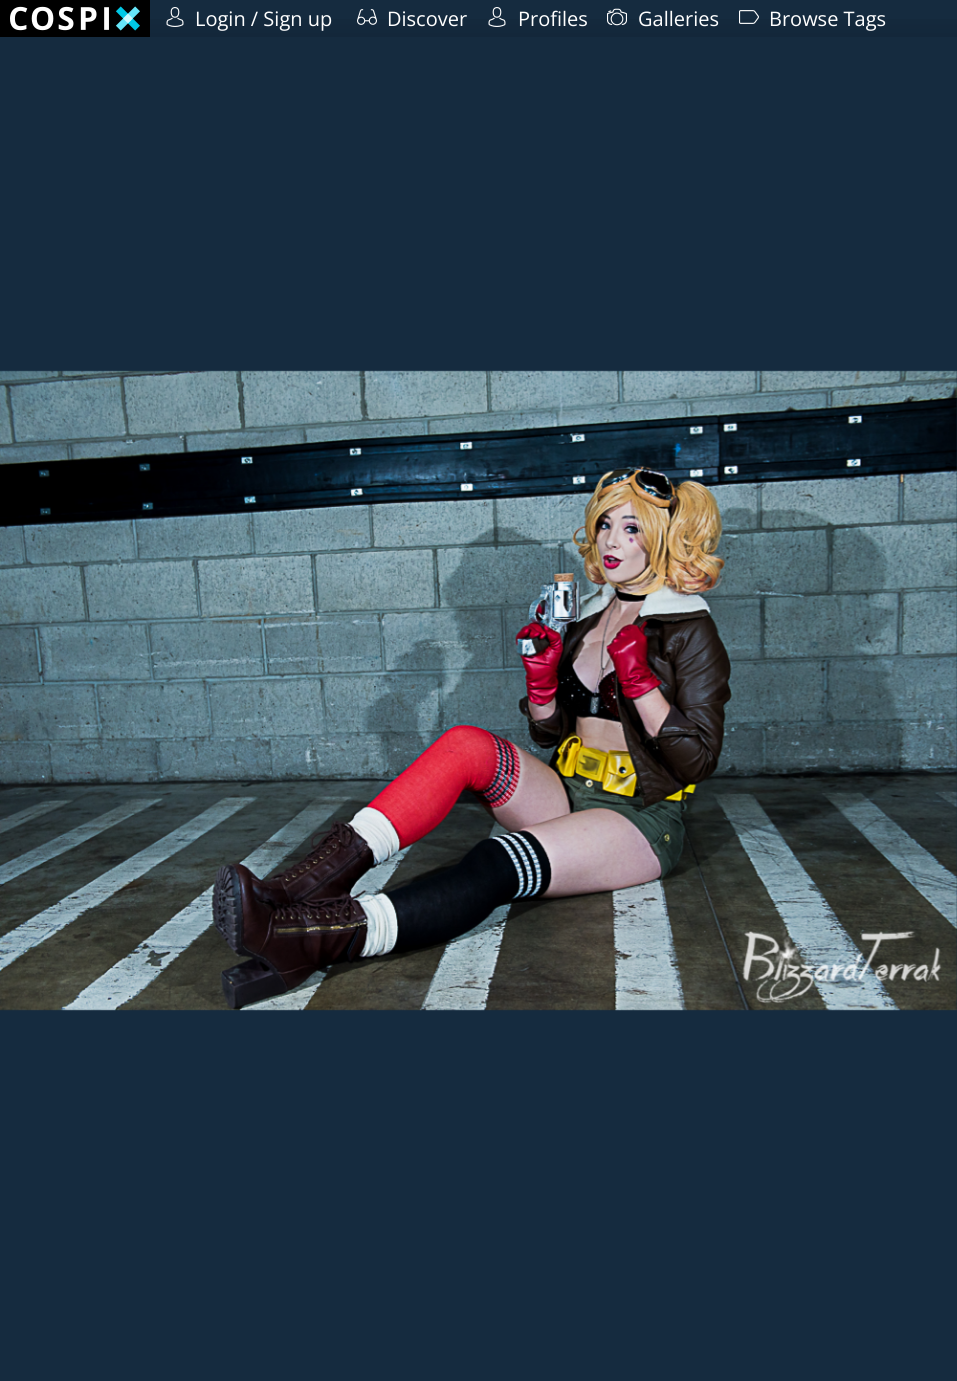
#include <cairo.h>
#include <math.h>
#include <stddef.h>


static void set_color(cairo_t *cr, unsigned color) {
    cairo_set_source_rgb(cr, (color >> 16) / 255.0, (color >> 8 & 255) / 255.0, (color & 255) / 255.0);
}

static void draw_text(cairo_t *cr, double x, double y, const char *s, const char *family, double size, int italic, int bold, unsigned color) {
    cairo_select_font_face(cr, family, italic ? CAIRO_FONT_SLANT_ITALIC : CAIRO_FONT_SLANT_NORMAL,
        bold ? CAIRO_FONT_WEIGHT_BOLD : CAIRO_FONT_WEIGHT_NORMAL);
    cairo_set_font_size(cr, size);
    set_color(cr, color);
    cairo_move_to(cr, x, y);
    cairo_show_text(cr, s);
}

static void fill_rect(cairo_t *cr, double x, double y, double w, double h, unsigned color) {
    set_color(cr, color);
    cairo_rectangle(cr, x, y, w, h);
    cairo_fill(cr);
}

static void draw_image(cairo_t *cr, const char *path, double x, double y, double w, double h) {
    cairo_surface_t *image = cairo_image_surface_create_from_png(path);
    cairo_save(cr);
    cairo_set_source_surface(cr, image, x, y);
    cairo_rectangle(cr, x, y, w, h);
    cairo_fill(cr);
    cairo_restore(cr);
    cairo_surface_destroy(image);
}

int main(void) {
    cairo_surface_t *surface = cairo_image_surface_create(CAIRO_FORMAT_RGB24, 957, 1381);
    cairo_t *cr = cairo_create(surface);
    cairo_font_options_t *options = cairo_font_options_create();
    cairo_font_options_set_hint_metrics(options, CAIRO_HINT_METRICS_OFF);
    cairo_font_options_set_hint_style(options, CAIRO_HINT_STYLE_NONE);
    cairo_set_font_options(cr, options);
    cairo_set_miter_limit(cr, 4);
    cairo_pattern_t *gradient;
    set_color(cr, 0x152B3F);
    cairo_paint(cr);
    gradient = cairo_pattern_create_linear(479, 37, 479, 0);
    cairo_pattern_add_color_stop_rgba(gradient, 0, 0.075, 0.153, 0.227, 1);
    cairo_pattern_add_color_stop_rgba(gradient, 1, 0.082, 0.169, 0.247, 1);
    cairo_set_source(cr, gradient);
    cairo_pattern_destroy(gradient);
    cairo_rectangle(cr, 150, 19, 807, 18);
    cairo_fill(cr);
    fill_rect(cr, 0, 0, 150, 37, 0x000000);
    draw_image(cr, "assets/img1.png", 10, 6, 130, 25);
    draw_image(cr, "assets/img2.png", 166, 7, 18, 20);
    draw_text(cr, 195, 26, "Login / Sign up", "Open Sans", 20, 0, 0, 0xFFFFFF);
    draw_image(cr, "assets/img3.png", 357, 9, 20, 16);
    draw_text(cr, 387, 26, "Discover", "Open Sans", 20, 0, 0, 0xFFFFFF);
    draw_image(cr, "assets/img2.png", 488, 7, 18, 20);
    draw_text(cr, 518, 26, "Profiles", "Open Sans", 20, 0, 0, 0xFFFFFF);
    draw_image(cr, "assets/img4.png", 607, 8, 20, 18);
    draw_text(cr, 638, 26, "Galleries", "Open Sans", 20, 0, 0, 0xFFFFFF);
    draw_image(cr, "assets/img5.png", 739, 10, 20, 14);
    draw_text(cr, 769, 26, "Browse Tags", "Open Sans", 20, 0, 0, 0xFFFFFF);
    draw_image(cr, "assets/img6.png", 0, 370, 957, 641);
    cairo_surface_write_to_png(surface, "output.png");
    cairo_font_options_destroy(options);
    cairo_destroy(cr);
    cairo_surface_destroy(surface);
    return 0;
}
